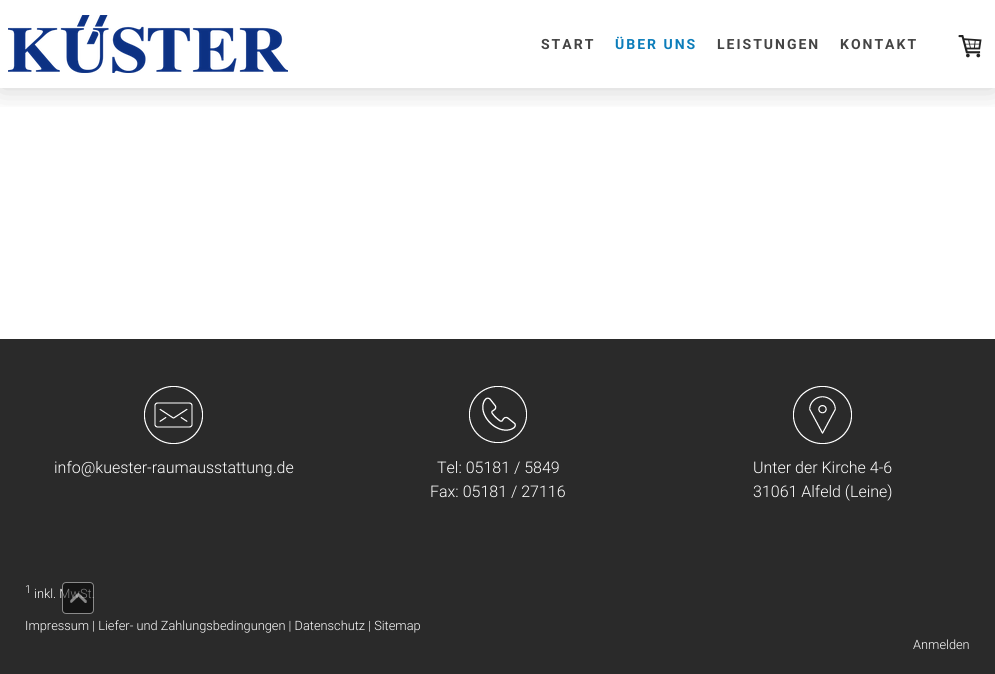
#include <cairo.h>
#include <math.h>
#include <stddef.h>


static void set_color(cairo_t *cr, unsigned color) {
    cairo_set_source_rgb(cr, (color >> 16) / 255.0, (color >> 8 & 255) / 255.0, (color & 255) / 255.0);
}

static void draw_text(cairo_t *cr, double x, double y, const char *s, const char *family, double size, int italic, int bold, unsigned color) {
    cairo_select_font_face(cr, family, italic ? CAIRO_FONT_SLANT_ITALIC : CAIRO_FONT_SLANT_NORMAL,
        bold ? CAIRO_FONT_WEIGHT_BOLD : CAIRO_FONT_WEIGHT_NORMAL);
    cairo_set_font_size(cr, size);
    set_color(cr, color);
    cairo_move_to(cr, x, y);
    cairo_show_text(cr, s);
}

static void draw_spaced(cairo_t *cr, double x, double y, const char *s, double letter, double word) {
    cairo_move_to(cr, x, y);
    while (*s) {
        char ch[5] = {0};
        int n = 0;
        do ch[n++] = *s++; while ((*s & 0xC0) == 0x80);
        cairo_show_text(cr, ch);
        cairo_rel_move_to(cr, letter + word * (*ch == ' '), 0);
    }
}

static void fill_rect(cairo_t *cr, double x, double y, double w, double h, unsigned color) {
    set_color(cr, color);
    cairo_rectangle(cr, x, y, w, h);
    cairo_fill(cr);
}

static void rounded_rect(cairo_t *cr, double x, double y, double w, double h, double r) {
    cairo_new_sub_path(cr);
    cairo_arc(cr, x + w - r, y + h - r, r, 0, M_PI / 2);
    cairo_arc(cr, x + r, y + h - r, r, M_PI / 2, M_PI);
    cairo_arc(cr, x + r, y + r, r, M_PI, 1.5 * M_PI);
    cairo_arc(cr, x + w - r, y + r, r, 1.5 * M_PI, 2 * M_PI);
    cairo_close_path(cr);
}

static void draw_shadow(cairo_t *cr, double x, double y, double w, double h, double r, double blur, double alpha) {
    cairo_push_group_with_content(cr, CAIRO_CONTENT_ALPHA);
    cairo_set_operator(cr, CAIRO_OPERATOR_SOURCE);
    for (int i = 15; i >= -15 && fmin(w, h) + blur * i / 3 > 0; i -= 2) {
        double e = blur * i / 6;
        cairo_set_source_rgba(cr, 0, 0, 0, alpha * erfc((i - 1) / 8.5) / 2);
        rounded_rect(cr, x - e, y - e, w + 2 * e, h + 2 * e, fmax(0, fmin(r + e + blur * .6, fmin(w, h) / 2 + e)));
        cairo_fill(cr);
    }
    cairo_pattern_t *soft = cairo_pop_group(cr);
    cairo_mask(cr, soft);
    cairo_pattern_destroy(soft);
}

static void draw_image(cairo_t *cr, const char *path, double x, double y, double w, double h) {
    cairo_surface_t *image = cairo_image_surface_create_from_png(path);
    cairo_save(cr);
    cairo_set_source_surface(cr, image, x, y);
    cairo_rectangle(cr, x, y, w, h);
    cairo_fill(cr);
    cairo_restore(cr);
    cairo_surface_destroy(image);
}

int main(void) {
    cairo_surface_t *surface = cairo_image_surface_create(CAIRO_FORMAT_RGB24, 995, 674);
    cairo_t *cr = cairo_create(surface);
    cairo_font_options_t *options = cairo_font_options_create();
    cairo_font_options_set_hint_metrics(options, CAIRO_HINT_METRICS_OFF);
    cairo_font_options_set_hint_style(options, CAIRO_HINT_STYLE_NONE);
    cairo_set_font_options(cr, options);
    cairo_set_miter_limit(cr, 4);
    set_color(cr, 0xFFFFFF);
    cairo_paint(cr);
    cairo_save(cr);
    cairo_rectangle(cr, 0, 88, 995, 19);
    cairo_clip(cr);
    set_color(cr, 0x000000);
    draw_shadow(cr, 0, 0, 995, 88, 0, 15, 0.2);
    cairo_restore(cr);
    draw_image(cr, "assets/img1.png", 8, 15, 280, 58);
    cairo_select_font_face(cr, "Roboto", CAIRO_FONT_SLANT_NORMAL, CAIRO_FONT_WEIGHT_BOLD);
    cairo_set_font_size(cr, 14);
    set_color(cr, 0x444444);
    draw_spaced(cr, 541, 49, "START", 2, 0);
    set_color(cr, 0x0C7DBA);
    draw_spaced(cr, 615, 49, "ÜBER UNS", 2, 0);
    set_color(cr, 0x444444);
    draw_spaced(cr, 717, 49, "LEISTUNGEN", 2, 0);
    draw_spaced(cr, 840, 49, "KONTAKT", 2, 0);
    draw_image(cr, "assets/img2.png", 958, 35, 24, 23);
    fill_rect(cr, 0, 339, 995, 335, 0x2A2A2A);
    draw_image(cr, "assets/img3.png", 144, 386, 59, 58);
    draw_text(cr, 54, 473, "info@kuester-raumausstattung.de", "Roboto Light", 16, 0, 0, 0xFFFFFF);
    draw_image(cr, "assets/img4.png", 469, 386, 58, 57);
    draw_text(cr, 437, 473, "Tel: 05181 / 5849", "Roboto Light", 16, 0, 0, 0xFFFFFF);
    draw_text(cr, 430, 497, "Fax: 05181 / 27116", "Roboto Light", 16, 0, 0, 0xFFFFFF);
    draw_image(cr, "assets/img5.png", 793, 386, 59, 58);
    draw_text(cr, 753, 473, "Unter der Kirche 4-6", "Roboto Light", 16, 0, 0, 0xFFFFFF);
    draw_text(cr, 753, 497, "31061 Alfeld (Leine)", "Roboto Light", 16, 0, 0, 0xFFFFFF);
    draw_text(cr, 25, 593, "1", "Roboto Light", 11, 0, 0, 0xFFFFFF);
    draw_text(cr, 34, 598, "inkl. MwSt.", "Roboto Light", 12.8, 0, 0, 0xFFFFFF);
    draw_text(cr, 25, 630, "Impressum | Liefer- und Zahlungsbedingungen | Datenschutz | Sitemap", "Roboto Light", 12.8, 0, 0, 0xFFFFFF);
    draw_text(cr, 913, 649, "Anmelden", "Roboto Light", 12.8, 0, 0, 0xFFFFFF);
    cairo_set_source_rgba(cr, 0, 0, 0, 0.5);
    rounded_rect(cr, 62, 582, 32, 32, 4);
    cairo_fill(cr);
    rounded_rect(cr, 62.5, 582.5, 31, 31, 3.5);
    cairo_set_source_rgba(cr, 1, 1, 1, 0.5);
    cairo_set_line_width(cr, 1);
    cairo_stroke(cr);
    draw_image(cr, "assets/img6.png", 70, 593, 17, 10);
    cairo_surface_write_to_png(surface, "output.png");
    cairo_font_options_destroy(options);
    cairo_destroy(cr);
    cairo_surface_destroy(surface);
    return 0;
}
